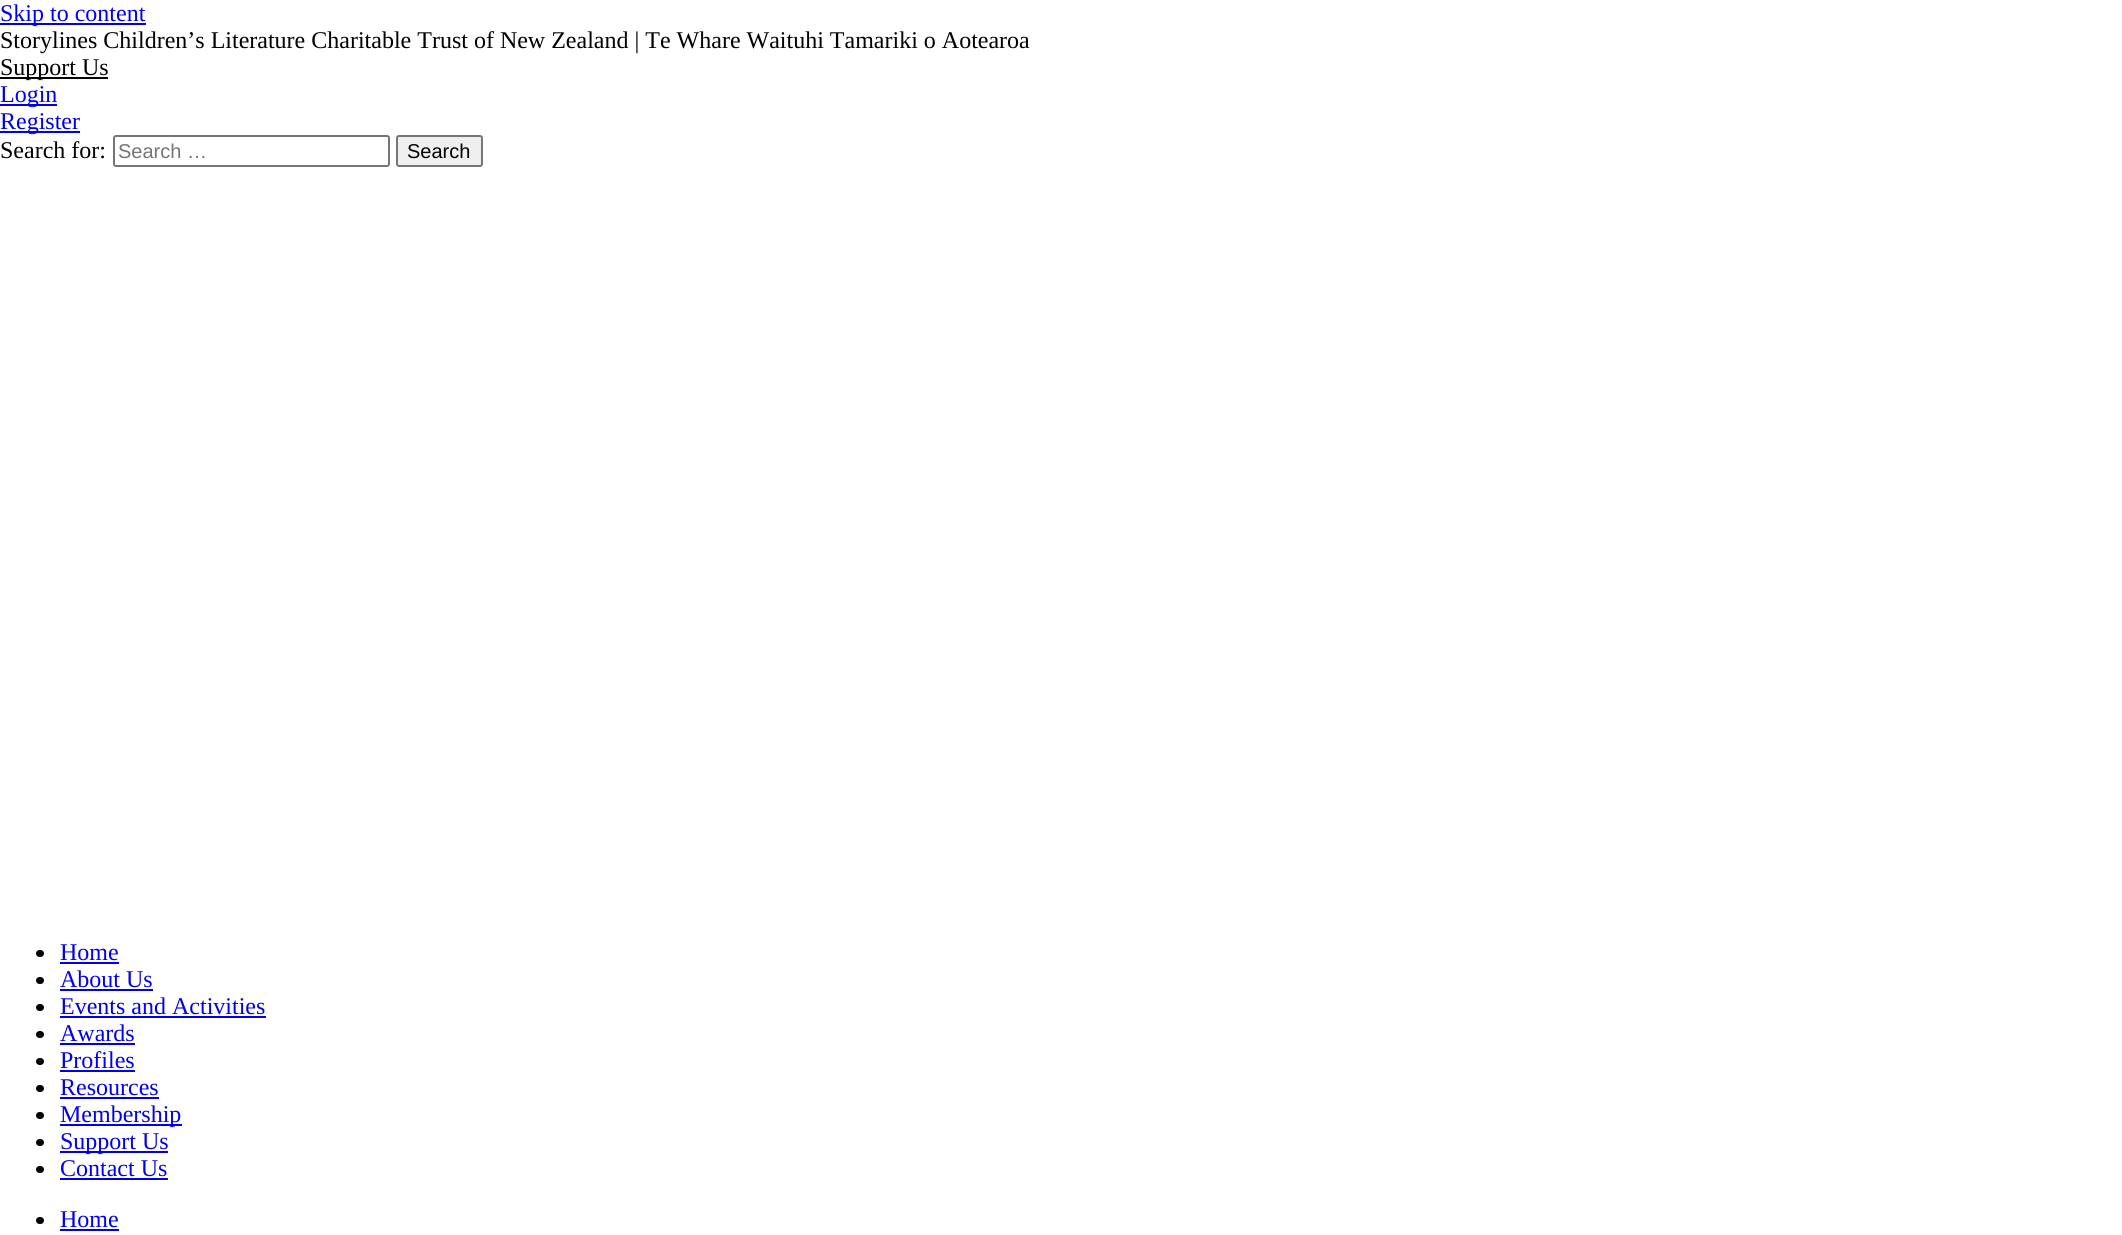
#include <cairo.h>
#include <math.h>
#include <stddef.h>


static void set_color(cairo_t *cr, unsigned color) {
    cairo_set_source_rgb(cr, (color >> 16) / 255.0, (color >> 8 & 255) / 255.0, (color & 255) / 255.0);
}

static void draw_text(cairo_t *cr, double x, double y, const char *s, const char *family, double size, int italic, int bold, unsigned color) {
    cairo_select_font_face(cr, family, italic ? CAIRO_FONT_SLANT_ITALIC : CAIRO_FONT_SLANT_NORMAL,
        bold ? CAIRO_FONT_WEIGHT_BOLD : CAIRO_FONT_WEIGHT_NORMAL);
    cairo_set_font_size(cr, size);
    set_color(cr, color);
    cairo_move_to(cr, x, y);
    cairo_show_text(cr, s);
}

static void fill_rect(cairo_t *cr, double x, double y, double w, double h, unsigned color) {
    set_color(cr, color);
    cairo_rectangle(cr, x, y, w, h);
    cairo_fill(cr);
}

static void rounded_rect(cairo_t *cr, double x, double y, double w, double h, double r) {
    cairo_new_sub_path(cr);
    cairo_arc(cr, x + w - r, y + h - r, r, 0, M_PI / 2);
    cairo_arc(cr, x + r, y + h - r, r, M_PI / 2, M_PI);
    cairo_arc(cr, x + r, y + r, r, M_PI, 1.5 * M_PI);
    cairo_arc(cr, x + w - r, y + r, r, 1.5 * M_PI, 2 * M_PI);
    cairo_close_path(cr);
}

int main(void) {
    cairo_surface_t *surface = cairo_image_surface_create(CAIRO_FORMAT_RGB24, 2122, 1235);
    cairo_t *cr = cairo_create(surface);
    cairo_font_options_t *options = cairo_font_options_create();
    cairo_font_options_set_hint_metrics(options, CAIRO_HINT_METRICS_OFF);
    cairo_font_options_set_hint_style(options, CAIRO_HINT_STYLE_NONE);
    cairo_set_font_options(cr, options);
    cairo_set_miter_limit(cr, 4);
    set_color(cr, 0xFFFFFF);
    cairo_paint(cr);
    fill_rect(cr, 0, 23, 146, 2, 0x0000EE);
    draw_text(cr, 0, 21, "Skip to content", "Liberation Serif", 24, 0, 0, 0x0000EE);
    draw_text(cr, 0, 48, "Storylines Children’s Literature Charitable Trust of New Zealand | Te Whare Waituhi Tamariki o Aotearoa", "Liberation Serif", 24, 0, 0, 0x000000);
    fill_rect(cr, 0, 77, 108, 2, 0x000000);
    draw_text(cr, 0, 75, "Support Us", "Liberation Serif", 24, 0, 0, 0x000000);
    fill_rect(cr, 0, 104, 57, 2, 0x0000EE);
    draw_text(cr, 0, 102, "Login", "Liberation Serif", 24, 0, 0, 0x0000EE);
    fill_rect(cr, 0, 131, 80, 2, 0x0000EE);
    draw_text(cr, 0, 129, "Register", "Liberation Serif", 24, 0, 0, 0x0000EE);
    draw_text(cr, 0, 158, "Search for:", "Liberation Serif", 24, 0, 0, 0x000000);
    rounded_rect(cr, 114, 136, 275, 30, 2);
    set_color(cr, 0x767676);
    cairo_stroke(cr);
    draw_text(cr, 118, 158, "Search …", "Liberation Sans", 20, 0, 0, 0x757575);
    set_color(cr, 0xEFEFEF);
    rounded_rect(cr, 397, 136, 85, 30, 2);
    cairo_fill_preserve(cr);
    set_color(cr, 0x767676);
    cairo_stroke(cr);
    draw_text(cr, 407, 158, "Search", "Liberation Sans", 20, 0, 0, 0x000000);
    rounded_rect(cr, 36, 950, 8, 7, 3.5);
    cairo_fill(cr);
    draw_text(cr, 60, 960, "Home", "Liberation Serif", 24, 0, 0, 0x0000EE);
    fill_rect(cr, 60, 962, 59, 2, 0x0000EE);
    set_color(cr, 0x000000);
    rounded_rect(cr, 36, 977, 8, 7, 3.5);
    cairo_fill(cr);
    draw_text(cr, 60, 987, "About Us", "Liberation Serif", 24, 0, 0, 0x0000EE);
    fill_rect(cr, 60, 989, 93, 2, 0x0000EE);
    set_color(cr, 0x000000);
    rounded_rect(cr, 36, 1004, 8, 7, 3.5);
    cairo_fill(cr);
    draw_text(cr, 60, 1014, "Events and Activities", "Liberation Serif", 24, 0, 0, 0x0000EE);
    fill_rect(cr, 60, 1016, 206, 2, 0x0000EE);
    set_color(cr, 0x000000);
    rounded_rect(cr, 36, 1031, 8, 7, 3.5);
    cairo_fill(cr);
    draw_text(cr, 60, 1041, "Awards", "Liberation Serif", 24, 0, 0, 0x0000EE);
    fill_rect(cr, 60, 1043, 75, 2, 0x0000EE);
    set_color(cr, 0x000000);
    rounded_rect(cr, 36, 1058, 8, 7, 3.5);
    cairo_fill(cr);
    draw_text(cr, 60, 1068, "Profiles", "Liberation Serif", 24, 0, 0, 0x0000EE);
    fill_rect(cr, 60, 1070, 75, 2, 0x0000EE);
    set_color(cr, 0x000000);
    rounded_rect(cr, 36, 1085, 8, 7, 3.5);
    cairo_fill(cr);
    draw_text(cr, 60, 1095, "Resources", "Liberation Serif", 24, 0, 0, 0x0000EE);
    fill_rect(cr, 60, 1097, 99, 2, 0x0000EE);
    set_color(cr, 0x000000);
    rounded_rect(cr, 36, 1112, 8, 7, 3.5);
    cairo_fill(cr);
    fill_rect(cr, 60, 1124, 122, 2, 0x0000EE);
    draw_text(cr, 60, 1122, "Membership", "Liberation Serif", 24, 0, 0, 0x0000EE);
    set_color(cr, 0x000000);
    rounded_rect(cr, 36, 1139, 8, 7, 3.5);
    cairo_fill(cr);
    fill_rect(cr, 60, 1151, 108, 2, 0x0000EE);
    draw_text(cr, 60, 1149, "Support Us", "Liberation Serif", 24, 0, 0, 0x0000EE);
    set_color(cr, 0x000000);
    rounded_rect(cr, 36, 1166, 8, 7, 3.5);
    cairo_fill(cr);
    draw_text(cr, 60, 1176, "Contact Us", "Liberation Serif", 24, 0, 0, 0x0000EE);
    fill_rect(cr, 60, 1178, 108, 2, 0x0000EE);
    set_color(cr, 0x000000);
    rounded_rect(cr, 36, 1217, 8, 7, 3.5);
    cairo_fill(cr);
    draw_text(cr, 60, 1227, "Home", "Liberation Serif", 24, 0, 0, 0x0000EE);
    fill_rect(cr, 60, 1229, 59, 2, 0x0000EE);
    cairo_surface_write_to_png(surface, "output.png");
    cairo_font_options_destroy(options);
    cairo_destroy(cr);
    cairo_surface_destroy(surface);
    return 0;
}
